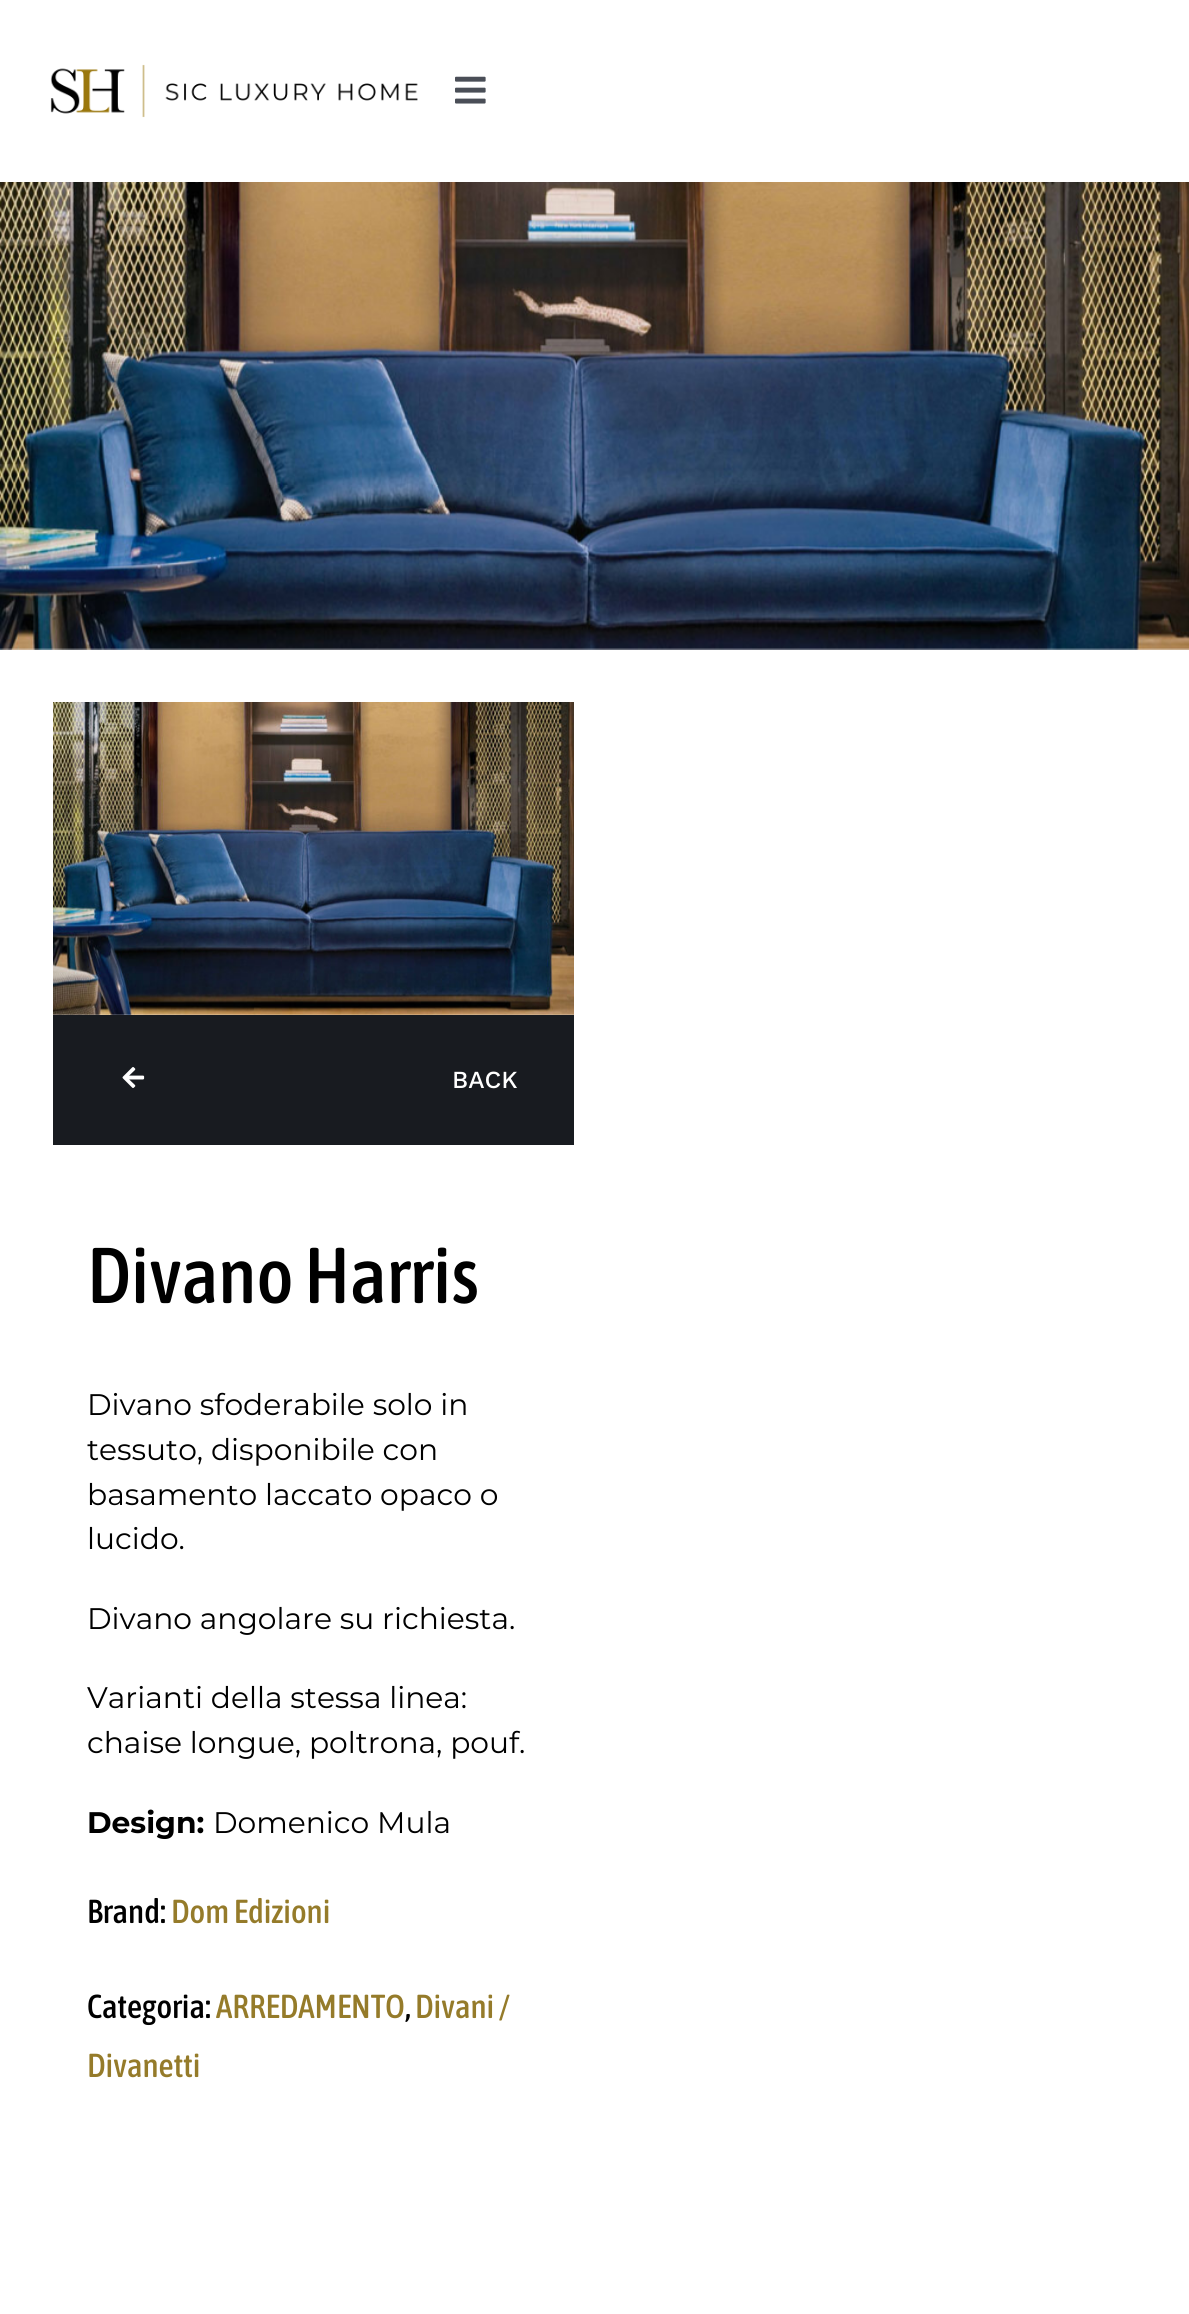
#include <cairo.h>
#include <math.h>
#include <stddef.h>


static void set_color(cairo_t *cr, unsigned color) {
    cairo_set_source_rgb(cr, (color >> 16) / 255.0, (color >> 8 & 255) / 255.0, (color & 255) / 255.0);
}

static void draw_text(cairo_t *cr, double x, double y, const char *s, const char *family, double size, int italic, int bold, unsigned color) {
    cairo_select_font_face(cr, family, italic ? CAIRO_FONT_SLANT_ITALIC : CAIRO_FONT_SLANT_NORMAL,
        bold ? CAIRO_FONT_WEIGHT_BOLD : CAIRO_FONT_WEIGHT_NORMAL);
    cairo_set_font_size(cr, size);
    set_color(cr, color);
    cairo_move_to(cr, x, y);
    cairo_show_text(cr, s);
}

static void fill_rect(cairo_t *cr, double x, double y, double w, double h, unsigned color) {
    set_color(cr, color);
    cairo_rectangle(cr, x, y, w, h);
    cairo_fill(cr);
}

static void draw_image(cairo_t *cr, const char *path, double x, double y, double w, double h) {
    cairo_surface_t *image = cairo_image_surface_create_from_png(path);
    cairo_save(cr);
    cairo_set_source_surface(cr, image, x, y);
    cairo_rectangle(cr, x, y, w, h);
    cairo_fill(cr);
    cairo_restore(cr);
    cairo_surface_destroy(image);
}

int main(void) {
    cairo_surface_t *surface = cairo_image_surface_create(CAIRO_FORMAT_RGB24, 1189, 2314);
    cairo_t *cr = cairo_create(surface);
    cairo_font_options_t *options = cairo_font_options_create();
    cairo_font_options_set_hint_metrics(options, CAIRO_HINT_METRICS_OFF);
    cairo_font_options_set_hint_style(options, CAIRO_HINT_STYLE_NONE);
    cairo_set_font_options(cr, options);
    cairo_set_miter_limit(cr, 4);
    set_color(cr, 0xFFFFFF);
    cairo_paint(cr);
    draw_image(cr, "assets/img1.png", 50, 64, 368, 54);
    draw_image(cr, "assets/img2.png", 455, 76, 31, 28);
    draw_image(cr, "assets/img3.png", 0, 182, 1189, 468);
    draw_image(cr, "assets/img4.png", 53, 702, 521, 313);
    fill_rect(cr, 53, 1015, 521, 130, 0x181B20);
    draw_image(cr, "assets/img5.png", 122, 1067, 23, 21);
    draw_text(cr, 452, 1088, "BACK", "Work Sans Medium", 24.5, 0, 0, 0xFFFFFF);
    draw_text(cr, 87, 1303, "Divano Harris", "Asap Condensed Medium", 78.75, 0, 0, 0x000000);
    draw_text(cr, 87, 1415, "Divano sfoderabile solo in", "Montserrat", 29.75, 0, 0, 0x000000);
    draw_text(cr, 87, 1460, "tessuto, disponibile con", "Montserrat", 29.75, 0, 0, 0x000000);
    draw_text(cr, 87, 1505, "basamento laccato opaco o", "Montserrat", 29.75, 0, 0, 0x000000);
    draw_text(cr, 87, 1549, "lucido.", "Montserrat", 29.75, 0, 0, 0x000000);
    draw_text(cr, 87, 1629, "Divano angolare su richiesta.", "Montserrat", 29.75, 0, 0, 0x000000);
    draw_text(cr, 87, 1708, "Varianti della stessa linea:", "Montserrat", 29.75, 0, 0, 0x000000);
    draw_text(cr, 87, 1753, "chaise longue, poltrona, pouf.", "Montserrat", 29.75, 0, 0, 0x000000);
    draw_text(cr, 87, 1833, "Design:", "Montserrat", 29.75, 0, 1, 0x000000);
    draw_text(cr, 213, 1833, "Domenico Mula", "Montserrat", 29.75, 0, 0, 0x000000);
    draw_text(cr, 87, 1923, "Brand:", "Asap Condensed Medium", 33.25, 0, 0, 0x000000);
    draw_text(cr, 171, 1923, "Dom Edizioni", "Asap Condensed Medium", 33.25, 0, 0, 0x957B2A);
    draw_text(cr, 87, 2018, "Categoria:", "Asap Condensed Medium", 33.25, 0, 0, 0x000000);
    draw_text(cr, 216, 2018, "ARREDAMENTO", "Asap Condensed Medium", 33.25, 0, 0, 0x957B2A);
    draw_text(cr, 405, 2018, ",", "Asap Condensed Medium", 33.25, 0, 0, 0x000000);
    draw_text(cr, 415, 2018, "Divani /", "Asap Condensed Medium", 33.25, 0, 0, 0x957B2A);
    draw_text(cr, 87, 2077, "Divanetti", "Asap Condensed Medium", 33.25, 0, 0, 0x957B2A);
    cairo_surface_write_to_png(surface, "output.png");
    cairo_font_options_destroy(options);
    cairo_destroy(cr);
    cairo_surface_destroy(surface);
    return 0;
}
